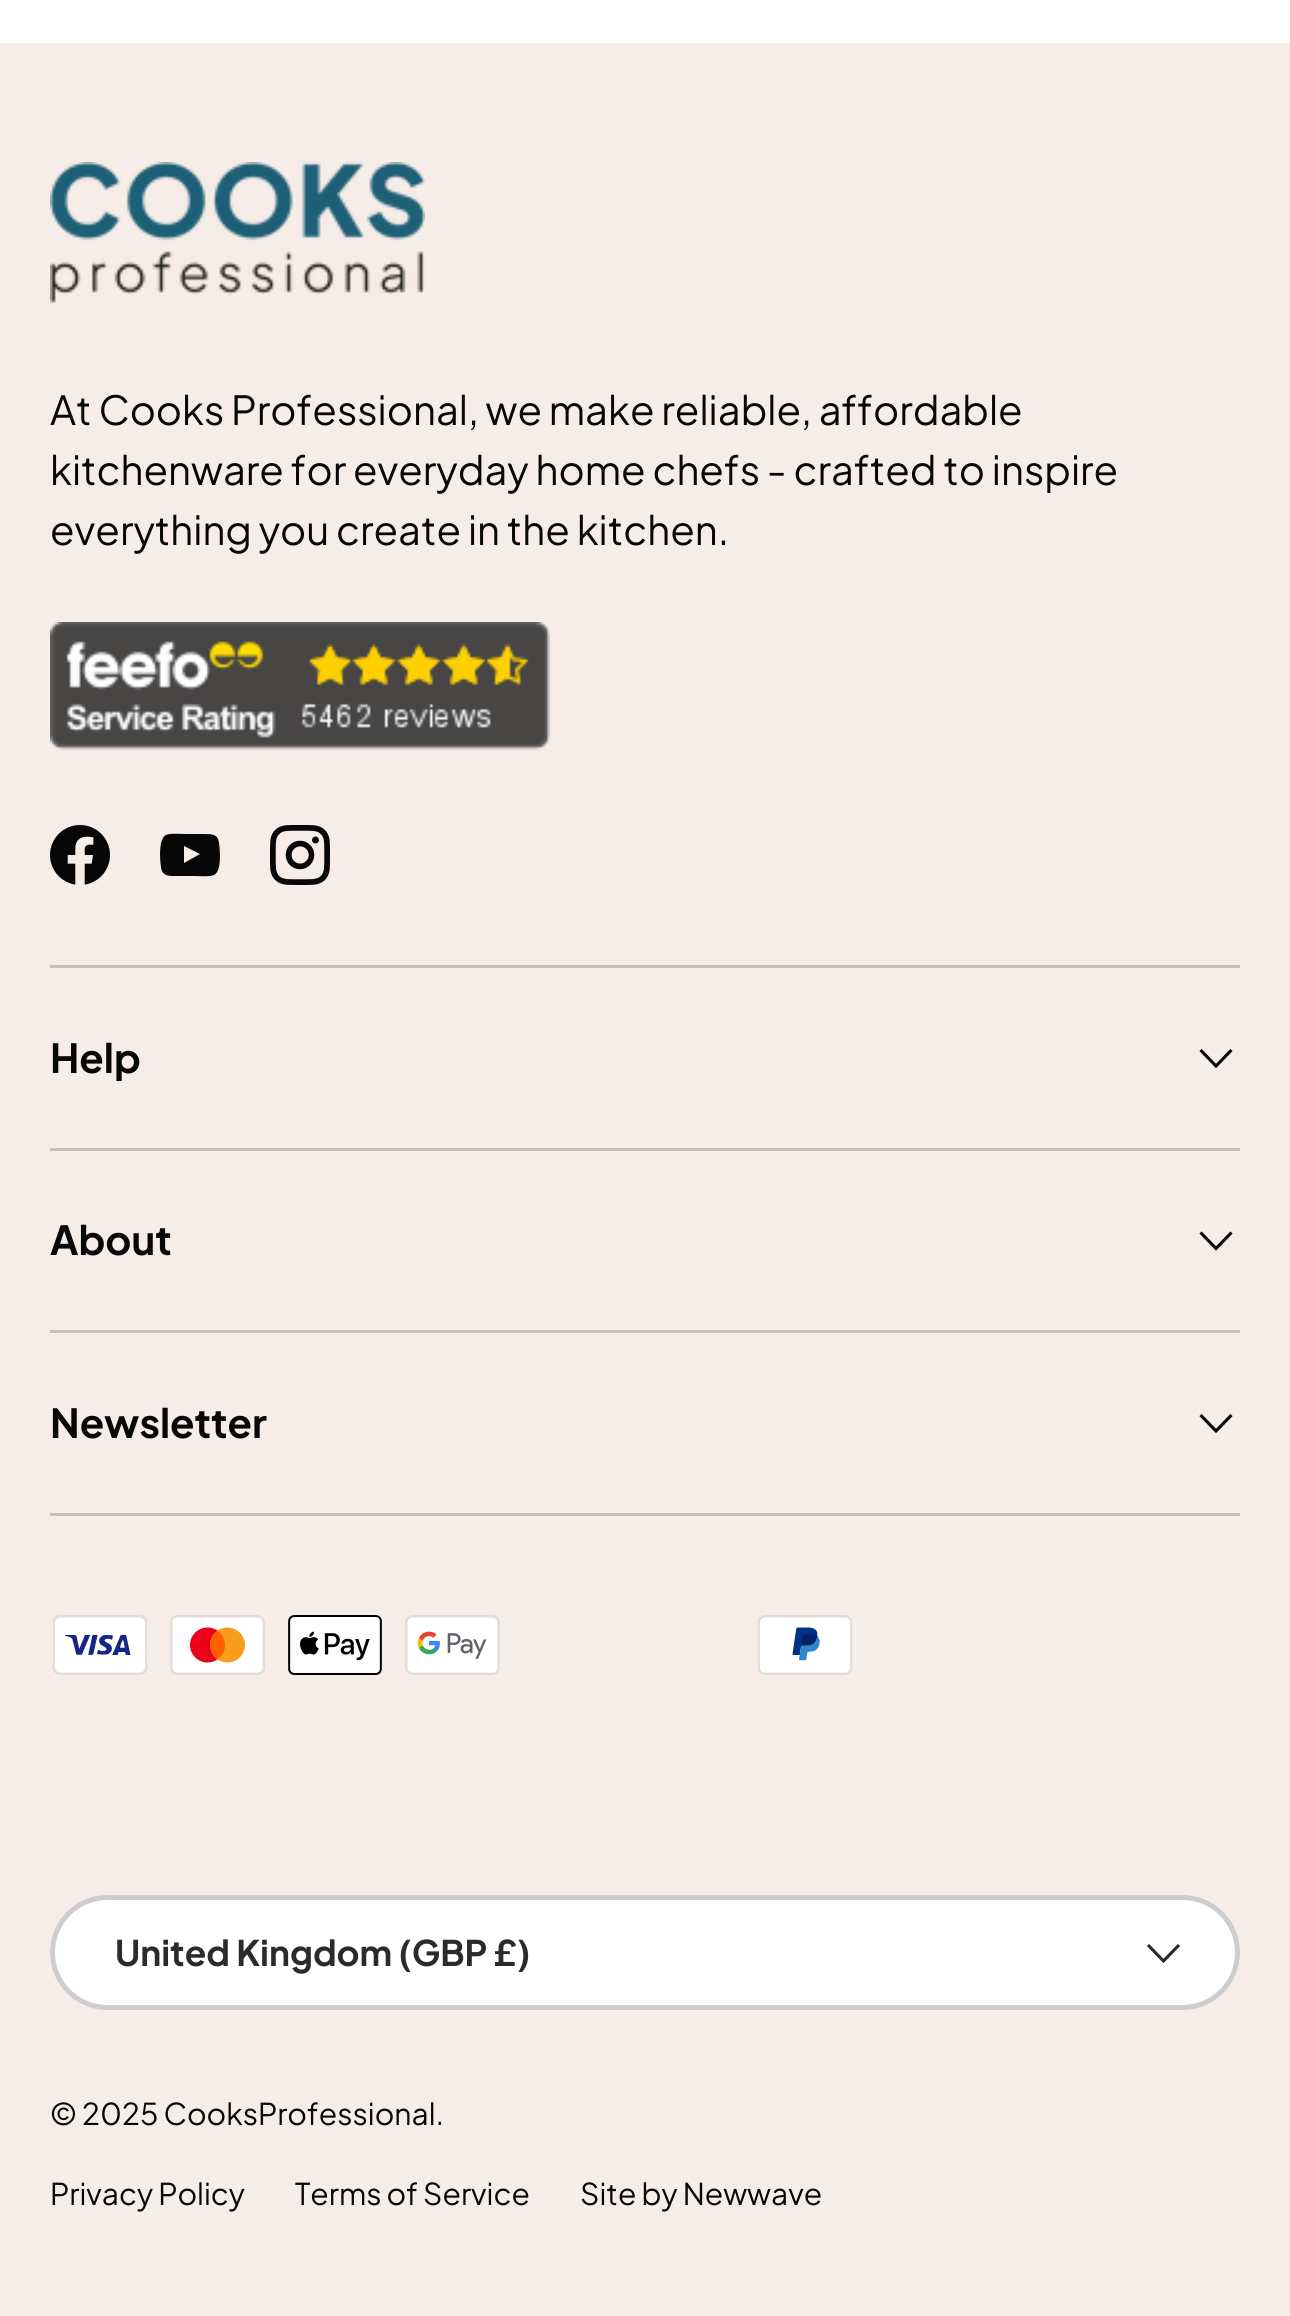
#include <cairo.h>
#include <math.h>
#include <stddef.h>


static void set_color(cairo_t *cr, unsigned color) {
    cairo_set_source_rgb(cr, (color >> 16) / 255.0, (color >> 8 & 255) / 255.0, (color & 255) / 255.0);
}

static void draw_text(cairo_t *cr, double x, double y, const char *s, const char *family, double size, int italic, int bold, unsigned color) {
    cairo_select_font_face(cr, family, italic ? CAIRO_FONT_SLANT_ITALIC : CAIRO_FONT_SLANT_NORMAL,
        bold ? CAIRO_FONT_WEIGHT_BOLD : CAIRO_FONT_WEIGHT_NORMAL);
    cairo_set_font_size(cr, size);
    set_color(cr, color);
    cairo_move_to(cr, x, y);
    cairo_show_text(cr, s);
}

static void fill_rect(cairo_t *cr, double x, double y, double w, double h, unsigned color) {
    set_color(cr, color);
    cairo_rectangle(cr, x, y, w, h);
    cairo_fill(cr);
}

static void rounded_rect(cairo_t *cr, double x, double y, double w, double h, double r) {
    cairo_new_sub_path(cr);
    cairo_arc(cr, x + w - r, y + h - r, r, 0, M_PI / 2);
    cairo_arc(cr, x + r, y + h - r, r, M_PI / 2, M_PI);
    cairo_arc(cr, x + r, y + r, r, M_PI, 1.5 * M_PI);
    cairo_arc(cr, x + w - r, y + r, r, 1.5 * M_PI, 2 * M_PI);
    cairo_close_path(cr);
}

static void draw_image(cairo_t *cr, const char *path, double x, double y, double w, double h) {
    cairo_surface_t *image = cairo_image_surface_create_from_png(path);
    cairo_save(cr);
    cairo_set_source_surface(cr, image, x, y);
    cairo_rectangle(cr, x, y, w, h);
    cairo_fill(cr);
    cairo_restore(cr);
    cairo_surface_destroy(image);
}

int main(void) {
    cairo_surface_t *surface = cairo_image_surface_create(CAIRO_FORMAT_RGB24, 1290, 2316);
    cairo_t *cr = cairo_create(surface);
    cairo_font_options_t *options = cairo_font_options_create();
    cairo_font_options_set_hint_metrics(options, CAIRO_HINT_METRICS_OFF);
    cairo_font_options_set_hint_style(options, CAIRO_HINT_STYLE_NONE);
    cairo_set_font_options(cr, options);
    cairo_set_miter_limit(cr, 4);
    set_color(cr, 0xFFFFFF);
    cairo_paint(cr);
    fill_rect(cr, 0, 43, 1290, 2273, 0xF7EDE8);
    draw_image(cr, "assets/img1.png", 50, 162, 375, 141);
    draw_text(cr, 50, 425, "At Cooks Professional, we make reliable, affordable", "Plus Jakarta Sans", 40, 0, 0, 0x070707);
    draw_text(cr, 50, 485, "kitchenware for everyday home chefs - crafted to inspire", "Plus Jakarta Sans", 40, 0, 0, 0x070707);
    draw_text(cr, 50, 545, "everything you create in the kitchen.", "Plus Jakarta Sans", 40, 0, 0, 0x070707);
    draw_image(cr, "assets/img2.png", 50, 622, 500, 129);
    draw_image(cr, "assets/img3.png", 50, 825, 60, 60);
    cairo_new_path(cr);
    cairo_move_to(cr, 184, 863);
    cairo_line_to(cr, 184, 846);
    cairo_line_to(cr, 200, 854);
    cairo_close_path(cr);
    cairo_move_to(cr, 219, 843);
    cairo_curve_to(cr, 218, 834, 212, 834, 204, 834);
    cairo_line_to(cr, 186, 834);
    cairo_curve_to(cr, 180, 834, 170, 833, 166, 835);
    cairo_curve_to(cr, 158, 839, 160, 861, 161, 867);
    cairo_curve_to(cr, 162, 877, 170, 876, 178, 876);
    cairo_line_to(cr, 194, 876);
    cairo_curve_to(cr, 200, 876, 210, 877, 214, 875);
    cairo_curve_to(cr, 222, 871, 220, 850, 219, 843);
    cairo_close_path(cr);
    cairo_fill(cr);
    draw_image(cr, "assets/img4.png", 270, 825, 60, 60);
    fill_rect(cr, 50, 965, 1190, 3, 0xC7BFBB);
    fill_rect(cr, 50, 1148, 1190, 3, 0xC7BFBB);
    draw_text(cr, 50, 1073, "Help", "Plus Jakarta Sans", 40, 0, 1, 0x070707);
    cairo_new_path(cr);
    cairo_move_to(cr, 1231.5, 1050);
    cairo_line_to(cr, 1216, 1066);
    cairo_line_to(cr, 1200.5, 1050);
    cairo_set_line_width(cr, 3.1);
    cairo_stroke(cr);
    fill_rect(cr, 50, 1330, 1190, 3, 0xC7BFBB);
    draw_text(cr, 50, 1255, "About", "Plus Jakarta Sans", 40, 0, 1, 0x070707);
    cairo_new_path(cr);
    cairo_move_to(cr, 1231.5, 1232.5);
    cairo_line_to(cr, 1216, 1248.5);
    cairo_line_to(cr, 1200.5, 1232.5);
    cairo_stroke(cr);
    fill_rect(cr, 50, 1513, 1190, 3, 0xC7BFBB);
    draw_text(cr, 50, 1438, "Newsletter", "Plus Jakarta Sans", 40, 0, 1, 0x070707);
    cairo_new_path(cr);
    cairo_move_to(cr, 1231.5, 1415);
    cairo_line_to(cr, 1216, 1431);
    cairo_line_to(cr, 1200.5, 1415);
    cairo_stroke(cr);
    draw_image(cr, "assets/img5.png", 52, 1615, 96, 60);
    draw_image(cr, "assets/img6.png", 170, 1615, 95, 60);
    draw_image(cr, "assets/img7.png", 288, 1615, 94, 60);
    draw_image(cr, "assets/img8.png", 405, 1615, 95, 60);
    draw_image(cr, "assets/img9.png", 757, 1615, 96, 60);
    set_color(cr, 0xFFFFFF);
    rounded_rect(cr, 50, 1895, 1190, 115, 57.5);
    cairo_fill(cr);
    rounded_rect(cr, 52.5, 1897.5, 1185, 110, 55);
    cairo_set_source_rgba(cr, 0.027, 0.027, 0.027, 0.2);
    cairo_set_line_width(cr, 5);
    cairo_stroke(cr);
    draw_text(cr, 115, 1966, "United Kingdom (GBP £)", "Plus Jakarta Sans", 35.25, 0, 1, 0x2A2B2A);
    cairo_new_path(cr);
    cairo_move_to(cr, 1179, 1945);
    cairo_line_to(cr, 1163.5, 1961);
    cairo_line_to(cr, 1148, 1945);
    cairo_set_line_width(cr, 3.1);
    cairo_stroke(cr);
    draw_text(cr, 50, 2125, "© 2025 CooksProfessional.", "Plus Jakarta Sans", 30, 0, 0, 0x070707);
    draw_text(cr, 50, 2205, "Privacy Policy", "Plus Jakarta Sans", 30, 0, 0, 0x070707);
    draw_text(cr, 295, 2205, "Terms of Service", "Plus Jakarta Sans", 30, 0, 0, 0x070707);
    draw_text(cr, 580, 2205, "Site by Newwave", "Plus Jakarta Sans", 30, 0, 0, 0x070707);
    cairo_surface_write_to_png(surface, "output.png");
    cairo_font_options_destroy(options);
    cairo_destroy(cr);
    cairo_surface_destroy(surface);
    return 0;
}
